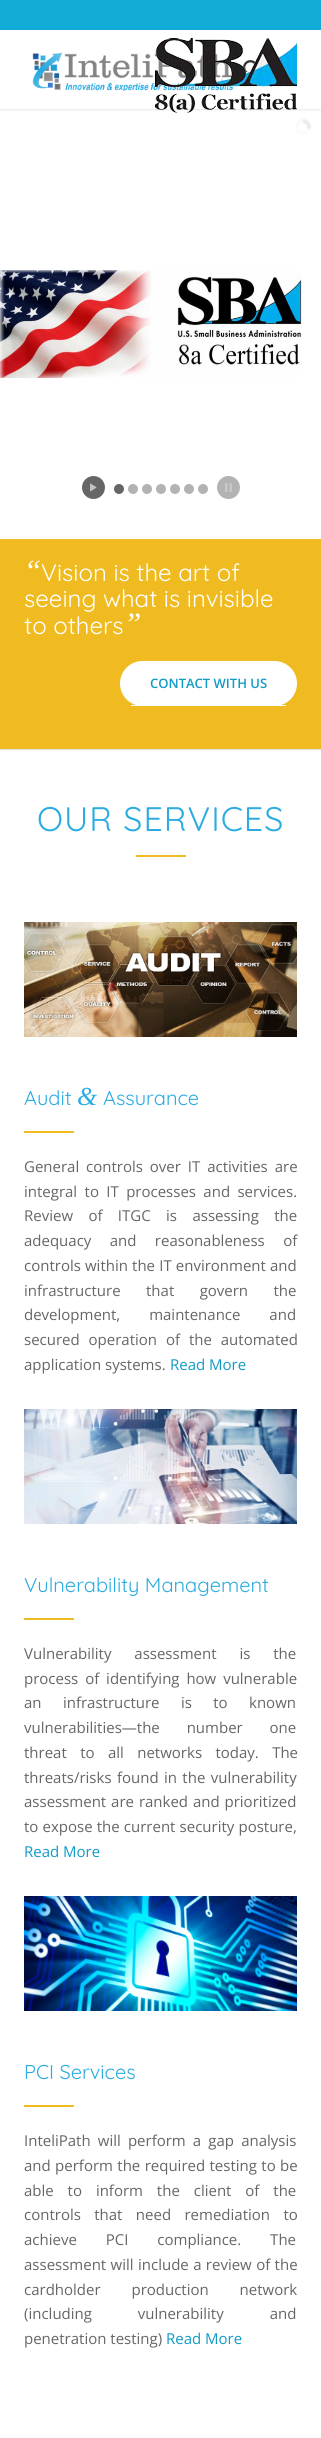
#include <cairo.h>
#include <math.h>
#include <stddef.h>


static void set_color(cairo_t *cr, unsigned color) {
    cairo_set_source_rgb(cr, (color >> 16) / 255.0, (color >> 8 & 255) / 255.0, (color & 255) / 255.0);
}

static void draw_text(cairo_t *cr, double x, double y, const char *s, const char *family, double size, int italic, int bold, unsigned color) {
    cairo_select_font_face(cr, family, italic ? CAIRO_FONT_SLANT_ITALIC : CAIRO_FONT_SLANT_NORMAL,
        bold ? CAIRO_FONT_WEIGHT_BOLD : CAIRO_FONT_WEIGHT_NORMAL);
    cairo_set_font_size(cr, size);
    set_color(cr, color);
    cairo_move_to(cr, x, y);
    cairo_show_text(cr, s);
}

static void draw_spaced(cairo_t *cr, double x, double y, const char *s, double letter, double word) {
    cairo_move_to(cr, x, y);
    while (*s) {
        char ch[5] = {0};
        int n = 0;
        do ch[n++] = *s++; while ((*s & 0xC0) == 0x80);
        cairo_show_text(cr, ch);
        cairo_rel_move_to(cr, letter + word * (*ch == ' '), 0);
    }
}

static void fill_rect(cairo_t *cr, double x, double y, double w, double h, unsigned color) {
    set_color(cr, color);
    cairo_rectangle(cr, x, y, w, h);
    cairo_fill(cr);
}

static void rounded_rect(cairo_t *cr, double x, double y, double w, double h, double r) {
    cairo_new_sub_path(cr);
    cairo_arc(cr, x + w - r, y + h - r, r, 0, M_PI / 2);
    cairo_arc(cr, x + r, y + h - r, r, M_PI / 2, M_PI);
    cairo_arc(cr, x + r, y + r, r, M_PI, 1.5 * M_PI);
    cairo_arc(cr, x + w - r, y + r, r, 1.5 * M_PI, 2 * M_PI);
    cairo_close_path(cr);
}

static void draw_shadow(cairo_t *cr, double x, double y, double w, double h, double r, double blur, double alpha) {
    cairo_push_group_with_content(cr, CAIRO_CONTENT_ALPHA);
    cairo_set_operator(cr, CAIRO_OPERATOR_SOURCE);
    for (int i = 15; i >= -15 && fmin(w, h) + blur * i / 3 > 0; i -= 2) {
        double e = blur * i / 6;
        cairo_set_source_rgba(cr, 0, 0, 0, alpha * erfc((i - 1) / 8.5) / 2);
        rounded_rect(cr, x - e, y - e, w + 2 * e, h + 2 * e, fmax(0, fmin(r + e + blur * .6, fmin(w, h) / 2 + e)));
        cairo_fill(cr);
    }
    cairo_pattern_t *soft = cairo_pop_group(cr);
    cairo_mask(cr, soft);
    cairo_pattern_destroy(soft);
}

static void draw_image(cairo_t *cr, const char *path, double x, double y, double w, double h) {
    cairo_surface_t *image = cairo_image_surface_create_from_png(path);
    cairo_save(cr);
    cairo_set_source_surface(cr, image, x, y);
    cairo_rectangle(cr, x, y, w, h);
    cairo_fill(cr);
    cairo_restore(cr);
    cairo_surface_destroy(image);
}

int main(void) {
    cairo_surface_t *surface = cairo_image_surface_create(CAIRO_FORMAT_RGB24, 321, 2438);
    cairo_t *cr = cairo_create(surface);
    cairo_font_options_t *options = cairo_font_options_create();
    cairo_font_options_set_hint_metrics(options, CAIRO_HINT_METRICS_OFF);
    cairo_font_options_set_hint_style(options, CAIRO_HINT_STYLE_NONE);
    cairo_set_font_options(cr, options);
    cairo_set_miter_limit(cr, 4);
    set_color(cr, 0xFFFFFF);
    cairo_paint(cr);
    set_color(cr, 0x000000);
    draw_shadow(cr, -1, -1, 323, 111, 0, 1, 0.1);
    fill_rect(cr, 0, 0, 321, 30, 0x11ABD6);
    fill_rect(cr, 0, 30, 321, 79, 0xFFFFFF);
    draw_image(cr, "assets/img2.png", 32, 52, 202, 39);
    draw_image(cr, "assets/img3.png", 243, 60, 13, 13);
    draw_image(cr, "assets/img1.png", 155, 38, 142, 75);
    cairo_arc(cr, 303, 127, 6, 0, 2 * M_PI);
    set_color(cr, 0xFBFBFB);
    cairo_set_line_width(cr, 4);
    cairo_stroke(cr);
    cairo_save(cr);
    cairo_rectangle(cr, 303, 119, 8, 16);
    cairo_clip(cr);
    cairo_new_path(cr);
    cairo_move_to(cr, 313, 122);
    cairo_line_to(cr, 310.5, 129.5);
    cairo_line_to(cr, 295.5, 124.5);
    cairo_line_to(cr, 298, 117);
    cairo_close_path(cr);
    cairo_clip(cr);
    cairo_new_path(cr);
    cairo_move_to(cr, 308.5, 129);
    cairo_curve_to(cr, 306, 136.5, 295, 132.5, 297.5, 125);
    cairo_curve_to(cr, 300, 117.5, 311, 121.5, 308.5, 129);
    cairo_close_path(cr);
    set_color(cr, 0xECECEC);
    cairo_stroke(cr);
    cairo_restore(cr);
    draw_image(cr, "assets/img4.png", 0, 270, 302, 108);
    set_color(cr, 0x666666);
    cairo_arc(cr, 93.5, 487.5, 12.5, 0, 2 * M_PI);
    cairo_fill_preserve(cr);
    set_color(cr, 0xFFFFFF);
    cairo_set_line_width(cr, 2);
    cairo_stroke(cr);
    draw_image(cr, "assets/img5.png", 90, 483, 7, 9);
    set_color(cr, 0x666666);
    cairo_arc(cr, 119, 489, 6, 0, 2 * M_PI);
    cairo_fill_preserve(cr);
    set_color(cr, 0xFFFFFF);
    cairo_stroke(cr);
    set_color(cr, 0xB3B3B3);
    cairo_arc(cr, 133, 489, 6, 0, 2 * M_PI);
    cairo_fill_preserve(cr);
    set_color(cr, 0xFFFFFF);
    cairo_stroke(cr);
    set_color(cr, 0xB3B3B3);
    cairo_arc(cr, 147, 489, 6, 0, 2 * M_PI);
    cairo_fill_preserve(cr);
    set_color(cr, 0xFFFFFF);
    cairo_stroke(cr);
    set_color(cr, 0xB3B3B3);
    cairo_arc(cr, 161, 489, 6, 0, 2 * M_PI);
    cairo_fill_preserve(cr);
    set_color(cr, 0xFFFFFF);
    cairo_stroke(cr);
    set_color(cr, 0xB3B3B3);
    cairo_arc(cr, 175, 489, 6, 0, 2 * M_PI);
    cairo_fill_preserve(cr);
    set_color(cr, 0xFFFFFF);
    cairo_stroke(cr);
    set_color(cr, 0xB3B3B3);
    cairo_arc(cr, 189, 489, 6, 0, 2 * M_PI);
    cairo_fill_preserve(cr);
    set_color(cr, 0xFFFFFF);
    cairo_stroke(cr);
    set_color(cr, 0xB3B3B3);
    cairo_arc(cr, 203, 489, 6, 0, 2 * M_PI);
    cairo_fill_preserve(cr);
    set_color(cr, 0xFFFFFF);
    cairo_stroke(cr);
    set_color(cr, 0xB3B3B3);
    cairo_arc(cr, 228.5, 487.5, 12.5, 0, 2 * M_PI);
    cairo_fill_preserve(cr);
    set_color(cr, 0xFFFFFF);
    cairo_stroke(cr);
    draw_image(cr, "assets/img6.png", 225, 483, 7, 9);
    fill_rect(cr, 0, 539, 321, 210, 0xEFBB20);
    draw_text(cr, 24, 581, "“", "Liberation Serif", 31, 1, 0, 0xFFFFFF);
    draw_text(cr, 41, 581, "Vision is the art of", "Quicksand Light", 24, 0, 0, 0xFFFFFF);
    draw_text(cr, 24, 607, "seeing what is invisible", "Quicksand Light", 24, 0, 0, 0xFFFFFF);
    draw_text(cr, 24, 634, "to others", "Quicksand Light", 24, 0, 0, 0xFFFFFF);
    draw_text(cr, 124, 634, "”", "Liberation Serif", 31, 1, 0, 0xFFFFFF);
    rounded_rect(cr, 120, 661, 177, 45, 22.5);
    cairo_fill(cr);
    fill_rect(cr, 131, 705, 155, 1, 0xFFFFFF);
    draw_text(cr, 150, 688, "CONTACT WITH US", "Open Sans SemiBold", 13, 0, 0, 0x109BC5);
    fill_rect(cr, 0, 749, 321, 1, 0xE1E1E1);
    cairo_select_font_face(cr, "Quicksand Light", CAIRO_FONT_SLANT_NORMAL, CAIRO_FONT_WEIGHT_NORMAL);
    cairo_set_font_size(cr, 34);
    set_color(cr, 0x2BABE0);
    draw_spaced(cr, 37, 831, "OUR SERVICES", 1, 0);
    fill_rect(cr, 136, 855, 50, 2, 0xEFBB20);
    draw_image(cr, "assets/img7.png", 24, 922, 273, 115);
    draw_text(cr, 24, 1105, "Audit", "Quicksand Light", 20, 0, 0, 0x2BABE0);
    draw_text(cr, 77, 1105, "&", "Liberation Serif", 26, 1, 0, 0x2BABE0);
    draw_text(cr, 103, 1105, "Assurance", "Quicksand Light", 20, 0, 0, 0x2BABE0);
    fill_rect(cr, 24, 1131, 50, 2, 0xEFBB20);
    cairo_select_font_face(cr, "Open Sans", CAIRO_FONT_SLANT_NORMAL, CAIRO_FONT_WEIGHT_NORMAL);
    cairo_set_font_size(cr, 15);
    set_color(cr, 0x666666);
    draw_spaced(cr, 24, 1172, "General controls over IT activities are", 0, 3);
    draw_spaced(cr, 24, 1197, "integral to IT processes and services.", 0, 3.5);
    draw_spaced(cr, 24, 1221, "Review of ITGC is assessing the", 0, 11.5);
    draw_spaced(cr, 24, 1246, "adequacy and reasonableness of", 0, 14.5);
    draw_spaced(cr, 24, 1271, "controls within the IT environment and", 0, 0.25);
    draw_spaced(cr, 24, 1296, "infrastructure that govern the", 0, 21.5);
    draw_spaced(cr, 24, 1320, "development, maintenance and", 0, 25);
    draw_spaced(cr, 24, 1345, "secured operation of the automated", 0, 5);
    draw_text(cr, 24, 1370, "application systems.", "Open Sans", 15, 0, 0, 0x666666);
    draw_text(cr, 170, 1370, "Read More", "Open Sans", 15, 0, 0, 0x109BC5);
    draw_image(cr, "assets/img8.png", 24, 1409, 273, 115);
    draw_text(cr, 24, 1592, "Vulnerability Management", "Quicksand Light", 20, 0, 0, 0x2BABE0);
    fill_rect(cr, 24, 1618, 50, 2, 0xEFBB20);
    cairo_select_font_face(cr, "Open Sans", CAIRO_FONT_SLANT_NORMAL, CAIRO_FONT_WEIGHT_NORMAL);
    cairo_set_font_size(cr, 15);
    set_color(cr, 0x666666);
    draw_spaced(cr, 24, 1659, "Vulnerability assessment is the", 0, 19);
    draw_spaced(cr, 24, 1684, "process of identifying how vulnerable", 0, 3);
    draw_spaced(cr, 24, 1708, "an infrastructure is to known", 0, 17.5);
    draw_spaced(cr, 24, 1733, "vulnerabilities—the number one", 0, 23);
    draw_spaced(cr, 24, 1758, "threat to all networks today. The", 0, 9.5);
    draw_spaced(cr, 24, 1783, "threats/risks found in the vulnerability", 0, 1.5);
    draw_spaced(cr, 24, 1807, "assessment are ranked and prioritized", 0, 1);
    draw_spaced(cr, 24, 1832, "to expose the current security posture,", 0, 0.25);
    draw_text(cr, 24, 1857, "Read More", "Open Sans", 15, 0, 0, 0x109BC5);
    draw_image(cr, "assets/img9.png", 24, 1896, 273, 115);
    draw_text(cr, 24, 2079, "PCI Services", "Quicksand Light", 20, 0, 0, 0x2BABE0);
    fill_rect(cr, 24, 2105, 50, 2, 0xEFBB20);
    cairo_select_font_face(cr, "Open Sans", CAIRO_FONT_SLANT_NORMAL, CAIRO_FONT_WEIGHT_NORMAL);
    cairo_set_font_size(cr, 15);
    set_color(cr, 0x666666);
    draw_spaced(cr, 24, 2146, "InteliPath will perform a gap analysis", 0, 3.25);
    draw_spaced(cr, 24, 2171, "and perform the required testing to be", 0, 0.5);
    draw_spaced(cr, 24, 2196, "able to inform the client of the", 0, 10);
    draw_spaced(cr, 24, 2220, "controls that need remediation to", 0, 9.5);
    draw_spaced(cr, 24, 2245, "achieve PCI compliance. The", 0, 25);
    draw_spaced(cr, 24, 2270, "assessment will include a review of the", 0, 0.5);
    draw_spaced(cr, 24, 2295, "cardholder production network", 0, 27);
    draw_spaced(cr, 24, 2319, "(including vulnerability and", 0, 42);
    draw_text(cr, 24, 2344, "penetration testing)", "Open Sans", 15, 0, 0, 0x666666);
    draw_text(cr, 166, 2344, "Read More", "Open Sans", 15, 0, 0, 0x109BC5);
    cairo_surface_write_to_png(surface, "output.png");
    cairo_font_options_destroy(options);
    cairo_destroy(cr);
    cairo_surface_destroy(surface);
    return 0;
}
